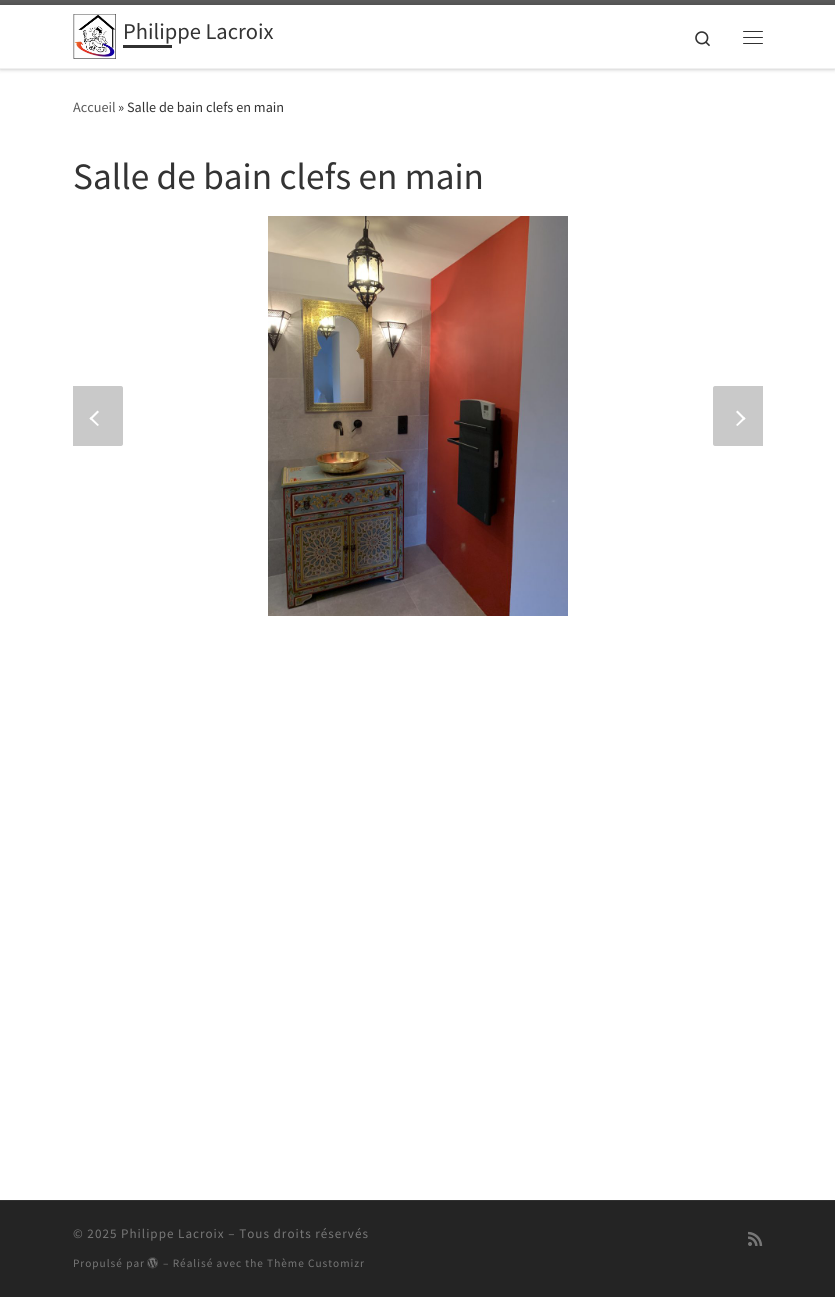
#include <cairo.h>
#include <math.h>
#include <stddef.h>


static void set_color(cairo_t *cr, unsigned color) {
    cairo_set_source_rgb(cr, (color >> 16) / 255.0, (color >> 8 & 255) / 255.0, (color & 255) / 255.0);
}

static void draw_text(cairo_t *cr, double x, double y, const char *s, const char *family, double size, int italic, int bold, unsigned color) {
    cairo_select_font_face(cr, family, italic ? CAIRO_FONT_SLANT_ITALIC : CAIRO_FONT_SLANT_NORMAL,
        bold ? CAIRO_FONT_WEIGHT_BOLD : CAIRO_FONT_WEIGHT_NORMAL);
    cairo_set_font_size(cr, size);
    set_color(cr, color);
    cairo_move_to(cr, x, y);
    cairo_show_text(cr, s);
}

static void draw_spaced(cairo_t *cr, double x, double y, const char *s, double letter, double word) {
    cairo_move_to(cr, x, y);
    while (*s) {
        char ch[5] = {0};
        int n = 0;
        do ch[n++] = *s++; while ((*s & 0xC0) == 0x80);
        cairo_show_text(cr, ch);
        cairo_rel_move_to(cr, letter + word * (*ch == ' '), 0);
    }
}

static void fill_rect(cairo_t *cr, double x, double y, double w, double h, unsigned color) {
    set_color(cr, color);
    cairo_rectangle(cr, x, y, w, h);
    cairo_fill(cr);
}

static void rounded_rect(cairo_t *cr, double x, double y, double w, double h, double r) {
    cairo_new_sub_path(cr);
    cairo_arc(cr, x + w - r, y + h - r, r, 0, M_PI / 2);
    cairo_arc(cr, x + r, y + h - r, r, M_PI / 2, M_PI);
    cairo_arc(cr, x + r, y + r, r, M_PI, 1.5 * M_PI);
    cairo_arc(cr, x + w - r, y + r, r, 1.5 * M_PI, 2 * M_PI);
    cairo_close_path(cr);
}

static void draw_shadow(cairo_t *cr, double x, double y, double w, double h, double r, double blur, double alpha) {
    cairo_push_group_with_content(cr, CAIRO_CONTENT_ALPHA);
    cairo_set_operator(cr, CAIRO_OPERATOR_SOURCE);
    for (int i = 15; i >= -15 && fmin(w, h) + blur * i / 3 > 0; i -= 2) {
        double e = blur * i / 6;
        cairo_set_source_rgba(cr, 0, 0, 0, alpha * erfc((i - 1) / 8.5) / 2);
        rounded_rect(cr, x - e, y - e, w + 2 * e, h + 2 * e, fmax(0, fmin(r + e + blur * .6, fmin(w, h) / 2 + e)));
        cairo_fill(cr);
    }
    cairo_pattern_t *soft = cairo_pop_group(cr);
    cairo_mask(cr, soft);
    cairo_pattern_destroy(soft);
}

static void draw_image(cairo_t *cr, const char *path, double x, double y, double w, double h) {
    cairo_surface_t *image = cairo_image_surface_create_from_png(path);
    cairo_save(cr);
    cairo_set_source_surface(cr, image, x, y);
    cairo_rectangle(cr, x, y, w, h);
    cairo_fill(cr);
    cairo_restore(cr);
    cairo_surface_destroy(image);
}

int main(void) {
    cairo_surface_t *surface = cairo_image_surface_create(CAIRO_FORMAT_RGB24, 835, 1297);
    cairo_t *cr = cairo_create(surface);
    cairo_font_options_t *options = cairo_font_options_create();
    cairo_font_options_set_hint_metrics(options, CAIRO_HINT_METRICS_OFF);
    cairo_font_options_set_hint_style(options, CAIRO_HINT_STYLE_NONE);
    cairo_set_font_options(cr, options);
    cairo_set_miter_limit(cr, 4);
    set_color(cr, 0xFFFFFF);
    cairo_paint(cr);
    set_color(cr, 0x666666);
    draw_shadow(cr, 0, 2, 835, 68, 0, 1, 0.08);
    fill_rect(cr, 0, 0, 835, 5, 0x5A5A5A);
    set_color(cr, 0x000000);
    draw_shadow(cr, 0, 5, 835, 64, 0, 2.5, 0.2);
    fill_rect(cr, 0, 5, 835, 63, 0xFFFFFF);
    draw_image(cr, "assets/img1.png", 73, 14, 43, 45);
    draw_text(cr, 123, 39, "Philippe Lacroix", "Source Sans Pro", 22.5, 0, 0, 0x333333);
    fill_rect(cr, 123, 45, 49, 3, 0x313131);
    draw_image(cr, "assets/img2.png", 695, 31, 15, 16);
    rounded_rect(cr, 743, 31, 20, 1, 0.5);
    cairo_fill(cr);
    rounded_rect(cr, 743, 37, 20, 1, 0.5);
    cairo_fill(cr);
    rounded_rect(cr, 743, 43, 20, 1, 0.5);
    cairo_fill(cr);
    fill_rect(cr, 0, 68, 835, 1, 0xF0F0F0);
    draw_text(cr, 73, 112, "Accueil", "Source Sans Pro", 14.25, 0, 0, 0x5A5A5A);
    draw_text(cr, 118, 112, "» Salle de bain clefs en main", "Source Sans Pro", 14.25, 0, 0, 0x333333);
    draw_text(cr, 73, 189, "Salle de bain clefs en main", "Source Sans Pro", 37.25, 0, 0, 0x333333);
    draw_image(cr, "assets/img3.png", 268, 216, 300, 400);
    set_color(cr, 0xC9C9C9);
    cairo_new_path(cr);
    cairo_move_to(cr, 73, 386);
    cairo_line_to(cr, 121, 386);
    cairo_curve_to(cr, 122, 386, 123, 387, 123, 388);
    cairo_line_to(cr, 123, 444);
    cairo_curve_to(cr, 123, 445, 122, 446, 121, 446);
    cairo_line_to(cr, 73, 446);
    cairo_close_path(cr);
    cairo_fill(cr);
    set_color(cr, 0xFFFFFF);
    cairo_new_path(cr);
    cairo_move_to(cr, 99, 425);
    cairo_line_to(cr, 97.5, 426);
    cairo_line_to(cr, 89.5, 418.5);
    cairo_line_to(cr, 91, 417);
    cairo_close_path(cr);
    cairo_fill(cr);
    cairo_new_path(cr);
    cairo_move_to(cr, 99, 412);
    cairo_line_to(cr, 91, 420);
    cairo_line_to(cr, 89.5, 418.5);
    cairo_line_to(cr, 97.5, 410.5);
    cairo_close_path(cr);
    cairo_fill(cr);
    set_color(cr, 0xC9C9C9);
    cairo_new_path(cr);
    cairo_move_to(cr, 715, 386);
    cairo_line_to(cr, 763, 386);
    cairo_line_to(cr, 763, 446);
    cairo_line_to(cr, 715, 446);
    cairo_curve_to(cr, 714, 446, 713, 445, 713, 444);
    cairo_line_to(cr, 713, 388);
    cairo_curve_to(cr, 713, 387, 714, 386, 715, 386);
    cairo_close_path(cr);
    cairo_fill(cr);
    set_color(cr, 0xFFFFFF);
    cairo_new_path(cr);
    cairo_move_to(cr, 736, 412);
    cairo_line_to(cr, 737.5, 410.5);
    cairo_line_to(cr, 745.5, 418.5);
    cairo_line_to(cr, 744, 420);
    cairo_close_path(cr);
    cairo_fill(cr);
    cairo_new_path(cr);
    cairo_move_to(cr, 736, 425);
    cairo_line_to(cr, 744, 417);
    cairo_line_to(cr, 745.5, 418.5);
    cairo_line_to(cr, 737.5, 426);
    cairo_close_path(cr);
    cairo_fill(cr);
    fill_rect(cr, 0, 1200, 835, 1, 0x313131);
    fill_rect(cr, 0, 1201, 835, 96, 0x242424);
    cairo_set_font_size(cr, 13.1);
    set_color(cr, 0x777777);
    draw_spaced(cr, 73, 1238, "© 2025 Philippe Lacroix – Tous droits réservés", 1, 0);
    cairo_set_font_size(cr, 11.25);
    draw_spaced(cr, 73, 1267, "Propulsé par", 1, 0);
    draw_image(cr, "assets/img4.png", 147, 1257, 11, 12);
    draw_spaced(cr, 163, 1267, "– Réalisé avec the Thème Customizr", 1, 0);
    draw_image(cr, "assets/img5.png", 748, 1231, 15, 15);
    cairo_surface_write_to_png(surface, "output.png");
    cairo_font_options_destroy(options);
    cairo_destroy(cr);
    cairo_surface_destroy(surface);
    return 0;
}
